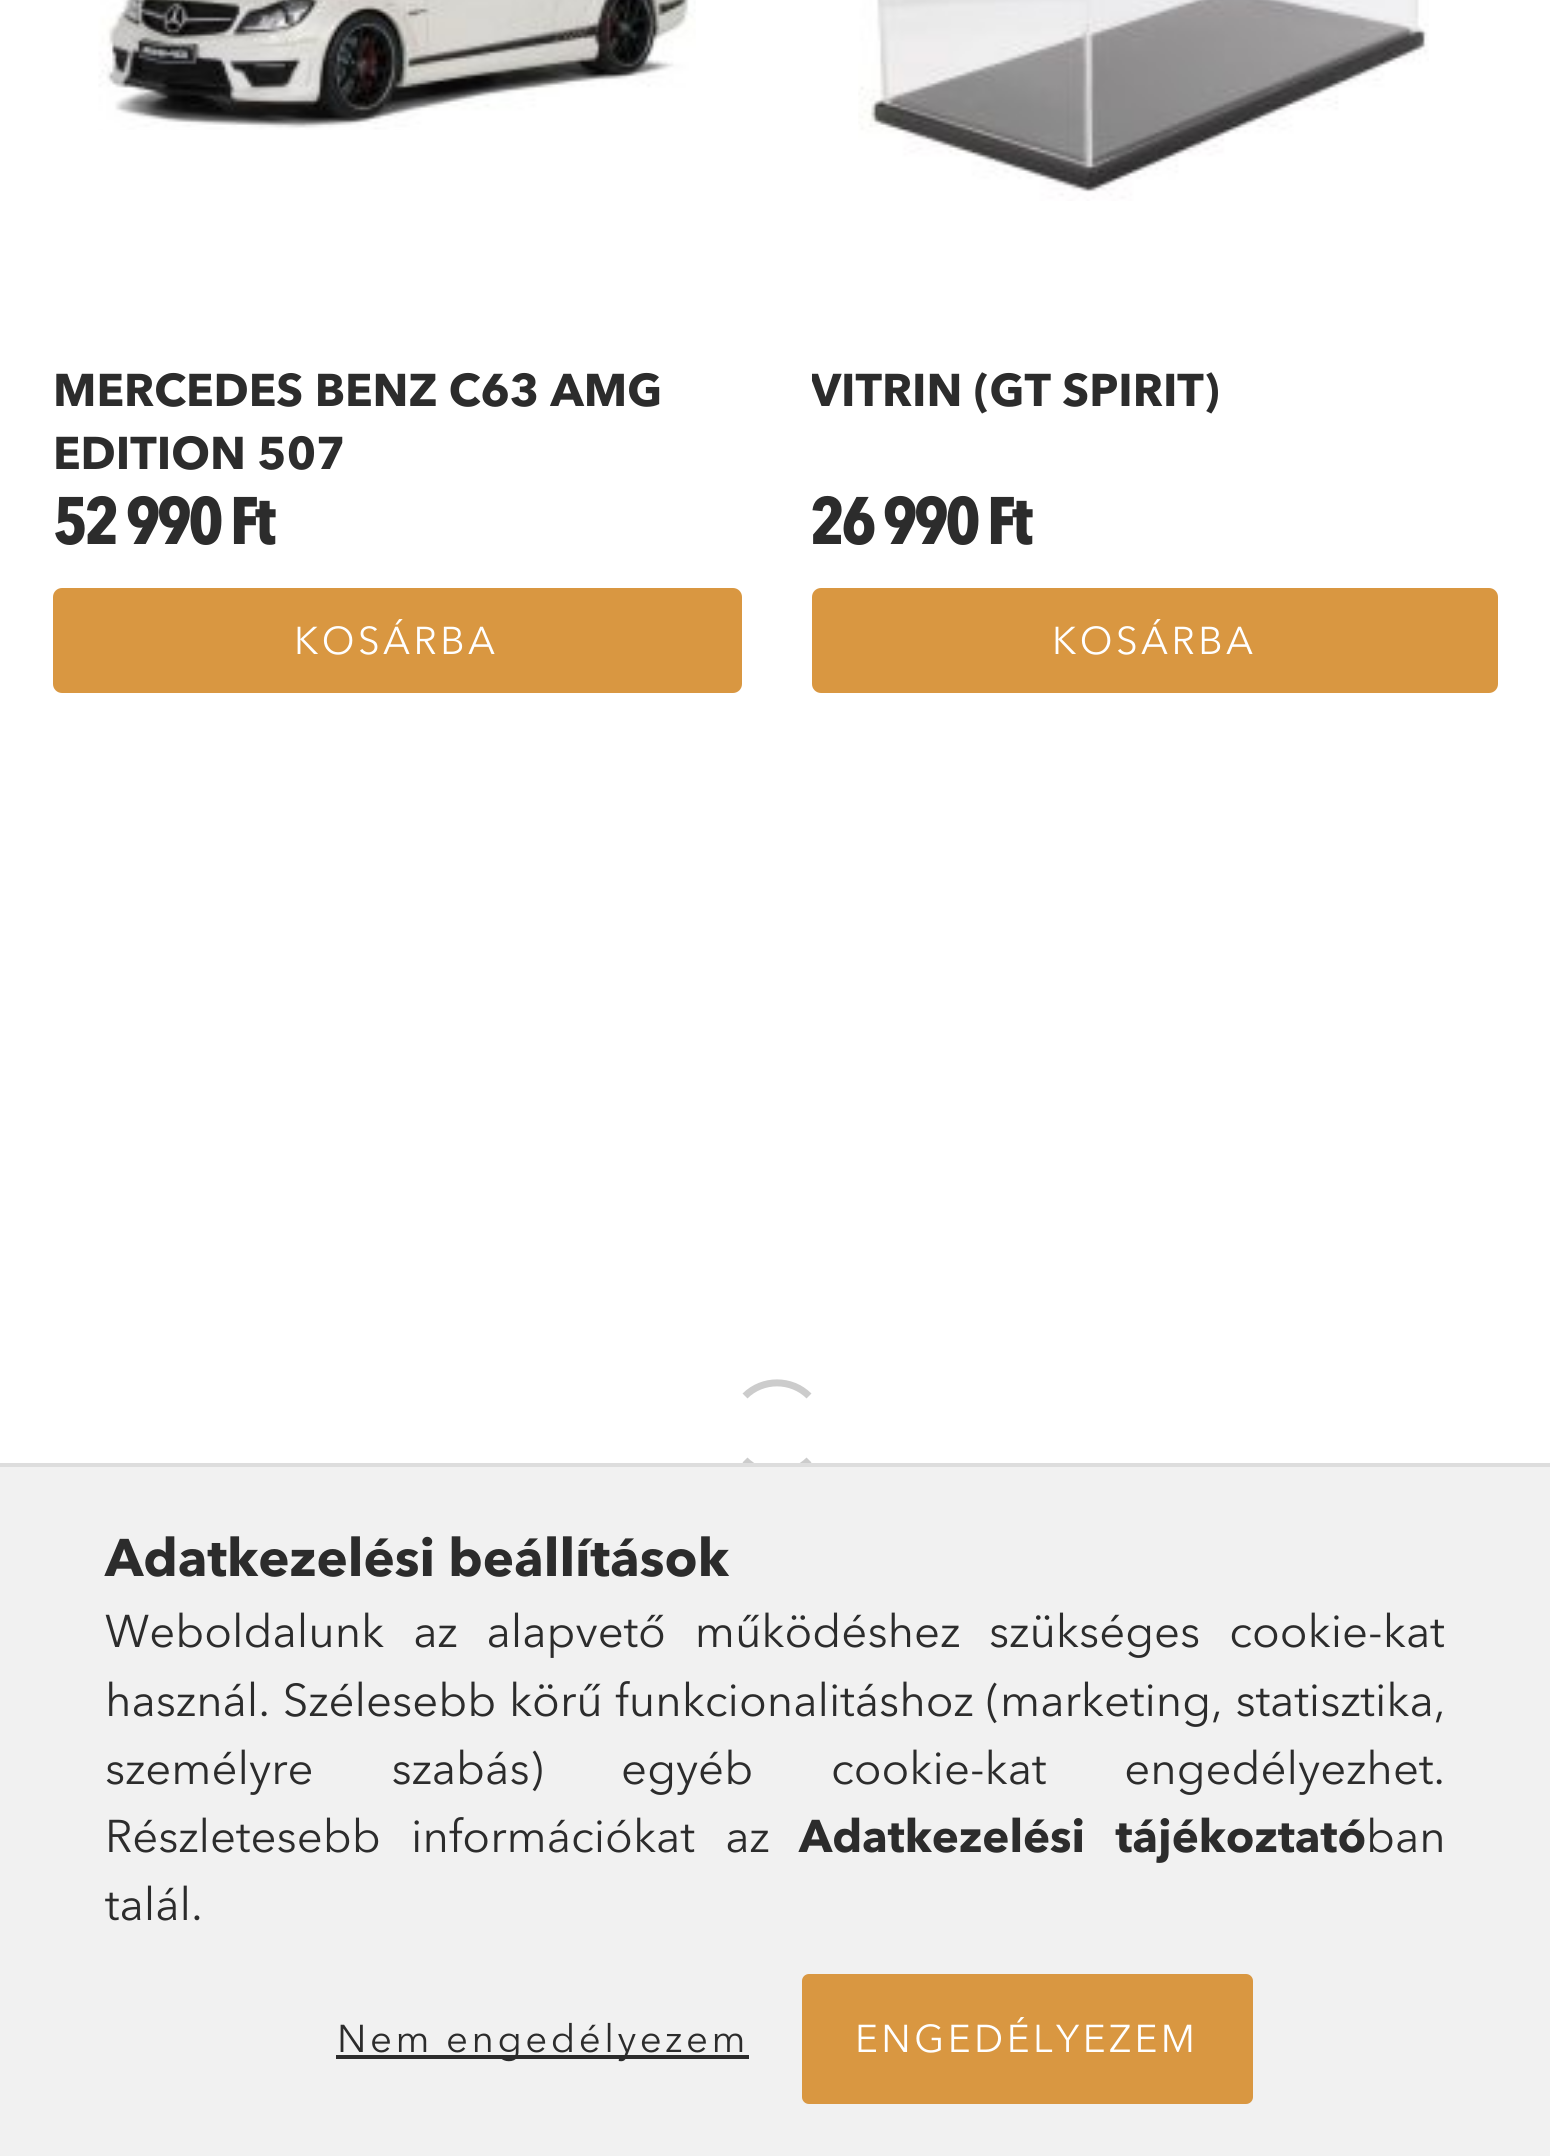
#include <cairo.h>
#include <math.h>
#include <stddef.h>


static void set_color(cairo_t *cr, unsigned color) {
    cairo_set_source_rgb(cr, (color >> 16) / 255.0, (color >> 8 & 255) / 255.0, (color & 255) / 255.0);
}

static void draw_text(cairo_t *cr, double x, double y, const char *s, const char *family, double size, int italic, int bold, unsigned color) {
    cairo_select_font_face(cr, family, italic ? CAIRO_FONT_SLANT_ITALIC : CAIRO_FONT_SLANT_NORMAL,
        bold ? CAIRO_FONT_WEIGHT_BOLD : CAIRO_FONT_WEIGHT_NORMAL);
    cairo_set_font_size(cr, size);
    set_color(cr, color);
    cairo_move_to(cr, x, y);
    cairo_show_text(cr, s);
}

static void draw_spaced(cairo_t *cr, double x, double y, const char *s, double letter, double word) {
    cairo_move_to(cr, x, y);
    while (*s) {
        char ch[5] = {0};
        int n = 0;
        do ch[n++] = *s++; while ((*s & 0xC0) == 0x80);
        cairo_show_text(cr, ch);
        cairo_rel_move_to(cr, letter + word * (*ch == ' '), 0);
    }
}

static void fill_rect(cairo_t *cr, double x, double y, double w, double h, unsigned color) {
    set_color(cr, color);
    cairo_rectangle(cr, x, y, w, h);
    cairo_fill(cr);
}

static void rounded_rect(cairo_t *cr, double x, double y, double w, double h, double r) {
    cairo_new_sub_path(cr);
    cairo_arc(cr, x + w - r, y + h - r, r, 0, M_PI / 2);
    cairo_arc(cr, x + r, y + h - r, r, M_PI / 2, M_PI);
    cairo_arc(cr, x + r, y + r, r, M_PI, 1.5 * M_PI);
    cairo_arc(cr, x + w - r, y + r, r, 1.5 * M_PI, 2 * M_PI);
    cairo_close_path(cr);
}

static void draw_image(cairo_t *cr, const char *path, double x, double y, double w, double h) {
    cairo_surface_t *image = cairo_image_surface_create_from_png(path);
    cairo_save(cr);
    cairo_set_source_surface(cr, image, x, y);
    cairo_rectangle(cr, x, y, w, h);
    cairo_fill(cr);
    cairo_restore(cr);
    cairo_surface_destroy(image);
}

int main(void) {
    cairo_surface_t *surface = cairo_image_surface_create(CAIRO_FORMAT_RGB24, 1550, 2156);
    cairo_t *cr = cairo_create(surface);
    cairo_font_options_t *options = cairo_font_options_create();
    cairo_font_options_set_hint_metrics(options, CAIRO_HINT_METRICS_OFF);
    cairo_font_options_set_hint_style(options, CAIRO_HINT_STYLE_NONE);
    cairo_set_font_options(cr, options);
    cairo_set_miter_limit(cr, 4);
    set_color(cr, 0xFFFFFF);
    cairo_paint(cr);
    draw_image(cr, "assets/img1.png", 98, 0, 598, 130);
    draw_text(cr, 53, 406, "MERCEDES BENZ C63 AMG", "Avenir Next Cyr", 45.5, 0, 1, 0x2C2C2C);
    draw_text(cr, 53, 469, "EDITION 507", "Avenir Next Cyr", 45.5, 0, 1, 0x2C2C2C);
    cairo_select_font_face(cr, "Avenir Next", CAIRO_FONT_SLANT_NORMAL, CAIRO_FONT_WEIGHT_BOLD);
    cairo_set_font_size(cr, 66.5);
    draw_spaced(cr, 53, 544, "52 990 Ft", -3.5, 0);
    set_color(cr, 0xD99741);
    rounded_rect(cr, 55, 590, 685, 101, 7);
    cairo_fill_preserve(cr);
    cairo_set_line_width(cr, 4);
    cairo_stroke(cr);
    cairo_select_font_face(cr, "Avenir Next Cyr", CAIRO_FONT_SLANT_NORMAL, CAIRO_FONT_WEIGHT_NORMAL);
    cairo_set_font_size(cr, 38.5);
    set_color(cr, 0xFFFFFF);
    draw_spaced(cr, 294, 654, "KOSÁRBA", 3.5, 0);
    draw_image(cr, "assets/img2.png", 858, 0, 571, 201);
    cairo_save(cr);
    cairo_rectangle(cr, 812, 357, 686, 63);
    cairo_clip(cr);
    draw_text(cr, 810, 406, "VITRIN (GT SPIRIT)", "Avenir Next Cyr", 45.5, 0, 1, 0x2C2C2C);
    cairo_restore(cr);
    cairo_select_font_face(cr, "Avenir Next", CAIRO_FONT_SLANT_NORMAL, CAIRO_FONT_WEIGHT_BOLD);
    cairo_set_font_size(cr, 66.5);
    set_color(cr, 0x2C2C2C);
    draw_spaced(cr, 810, 544, "26 990 Ft", -3.5, 0);
    set_color(cr, 0xD99741);
    rounded_rect(cr, 814, 590, 682, 101, 7);
    cairo_fill_preserve(cr);
    cairo_stroke(cr);
    cairo_select_font_face(cr, "Avenir Next Cyr", CAIRO_FONT_SLANT_NORMAL, CAIRO_FONT_WEIGHT_NORMAL);
    cairo_set_font_size(cr, 38.5);
    set_color(cr, 0xFFFFFF);
    draw_spaced(cr, 1052, 654, "KOSÁRBA", 3.5, 0);
    cairo_new_path(cr);
    cairo_move_to(cr, 745, 1396);
    cairo_curve_to(cr, 762.5, 1378.5, 791.5, 1378.5, 809, 1396);
    set_color(cr, 0xCCCCCC);
    cairo_set_line_width(cr, 7);
    cairo_stroke(cr);
    cairo_new_path(cr);
    cairo_move_to(cr, 809, 1460);
    cairo_curve_to(cr, 791.5, 1477.5, 762.5, 1477.5, 745, 1460);
    cairo_stroke(cr);
    fill_rect(cr, 0, 1467, 1550, 689, 0xF1F1F1);
    fill_rect(cr, 0, 1463, 1550, 4, 0xDDDDDD);
    draw_text(cr, 105, 1576, "Adatkezelési beállítások", "Avenir Next Cyr", 52.5, 0, 1, 0x2C2C2C);
    cairo_select_font_face(cr, "Avenir Next Cyr", CAIRO_FONT_SLANT_NORMAL, CAIRO_FONT_WEIGHT_NORMAL);
    cairo_set_font_size(cr, 45.5);
    draw_spaced(cr, 105, 1647, "Weboldalunk az alapvető működéshez szükséges cookie-kat", 0, 17.5);
    draw_spaced(cr, 105, 1716, "használ. Szélesebb körű funkcionalitáshoz (marketing, statisztika,", 0, 1.25);
    draw_spaced(cr, 105, 1784, "személyre szabás) egyéb cookie-kat engedélyezhet.", 0, 66.5);
    draw_spaced(cr, 105, 1852, "Részletesebb információkat az", 0, 19);
    cairo_select_font_face(cr, "Avenir Next Cyr", CAIRO_FONT_SLANT_NORMAL, CAIRO_FONT_WEIGHT_BOLD);
    draw_spaced(cr, 799, 1852, "Adatkezelési tájékoztató", 0, 19);
    draw_text(cr, 1366, 1852, "ban", "Avenir Next Cyr", 45.5, 0, 0, 0x2C2C2C);
    draw_text(cr, 105, 1920, "talál.", "Avenir Next Cyr", 45.5, 0, 0, 0x2C2C2C);
    fill_rect(cr, 336, 2055, 413, 4, 0x2C2C2C);
    cairo_set_font_size(cr, 38.5);
    draw_spaced(cr, 337, 2052, "Nem engedélyezem", 3.5, 0);
    set_color(cr, 0xD99741);
    rounded_rect(cr, 804, 1976, 447, 126, 5);
    cairo_fill_preserve(cr);
    cairo_set_line_width(cr, 4);
    cairo_stroke(cr);
    set_color(cr, 0xFFFFFF);
    draw_spaced(cr, 855, 2052, "ENGEDÉLYEZEM", 3.5, 0);
    cairo_surface_write_to_png(surface, "output.png");
    cairo_font_options_destroy(options);
    cairo_destroy(cr);
    cairo_surface_destroy(surface);
    return 0;
}
